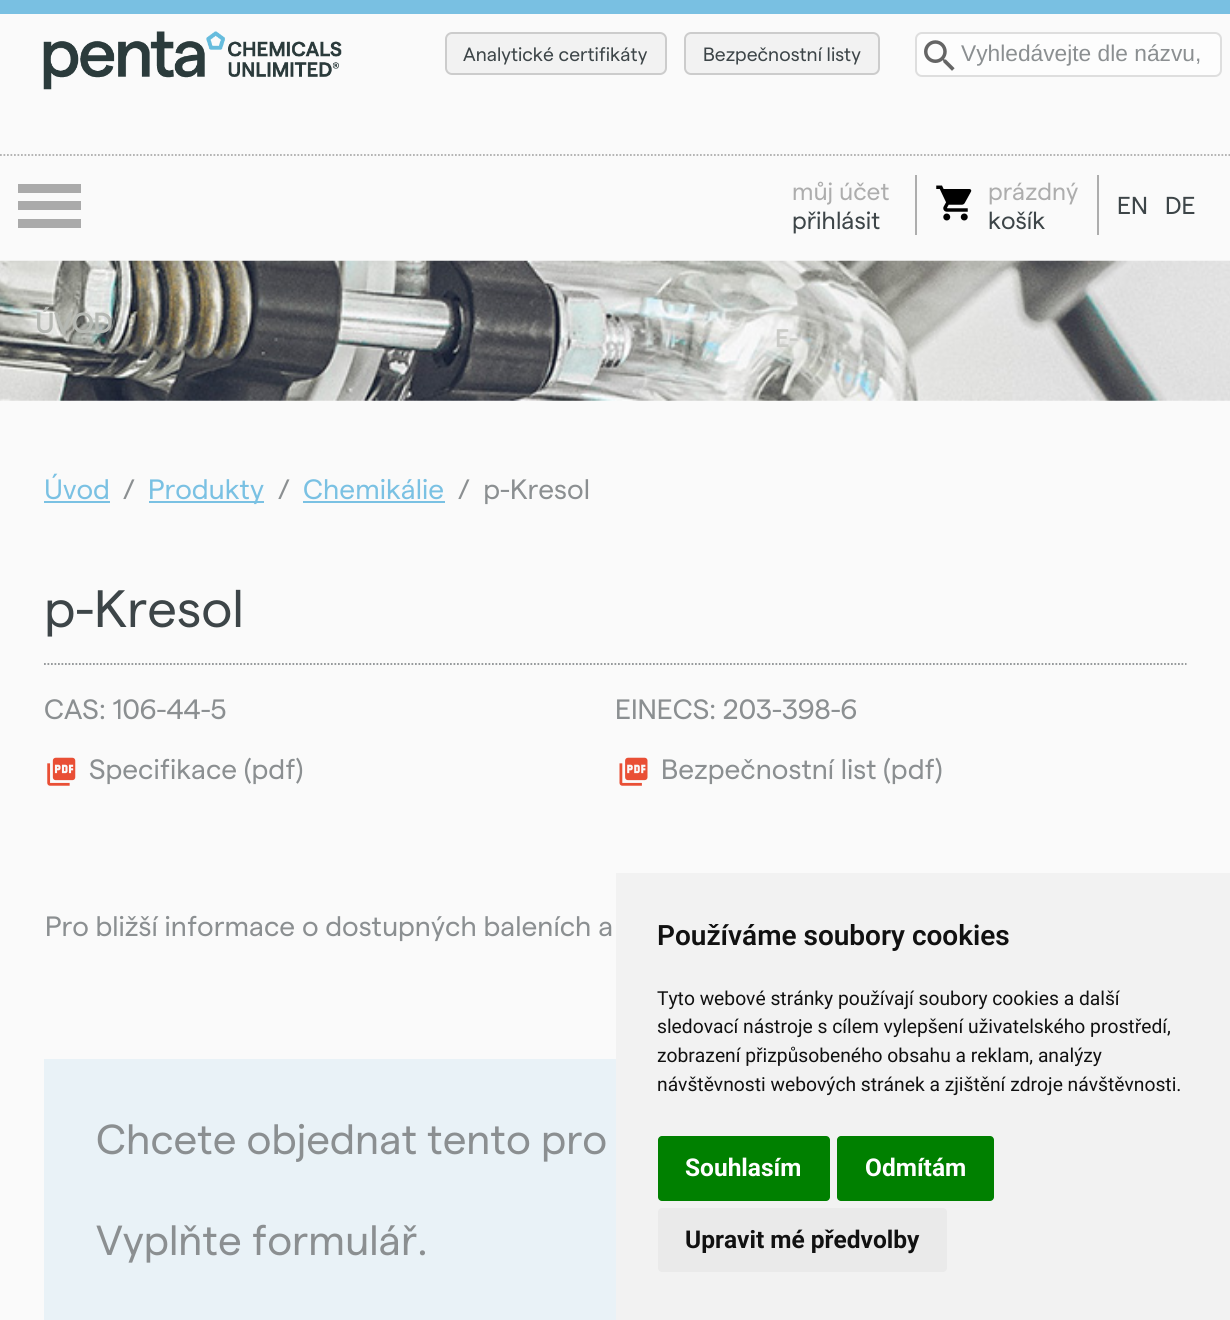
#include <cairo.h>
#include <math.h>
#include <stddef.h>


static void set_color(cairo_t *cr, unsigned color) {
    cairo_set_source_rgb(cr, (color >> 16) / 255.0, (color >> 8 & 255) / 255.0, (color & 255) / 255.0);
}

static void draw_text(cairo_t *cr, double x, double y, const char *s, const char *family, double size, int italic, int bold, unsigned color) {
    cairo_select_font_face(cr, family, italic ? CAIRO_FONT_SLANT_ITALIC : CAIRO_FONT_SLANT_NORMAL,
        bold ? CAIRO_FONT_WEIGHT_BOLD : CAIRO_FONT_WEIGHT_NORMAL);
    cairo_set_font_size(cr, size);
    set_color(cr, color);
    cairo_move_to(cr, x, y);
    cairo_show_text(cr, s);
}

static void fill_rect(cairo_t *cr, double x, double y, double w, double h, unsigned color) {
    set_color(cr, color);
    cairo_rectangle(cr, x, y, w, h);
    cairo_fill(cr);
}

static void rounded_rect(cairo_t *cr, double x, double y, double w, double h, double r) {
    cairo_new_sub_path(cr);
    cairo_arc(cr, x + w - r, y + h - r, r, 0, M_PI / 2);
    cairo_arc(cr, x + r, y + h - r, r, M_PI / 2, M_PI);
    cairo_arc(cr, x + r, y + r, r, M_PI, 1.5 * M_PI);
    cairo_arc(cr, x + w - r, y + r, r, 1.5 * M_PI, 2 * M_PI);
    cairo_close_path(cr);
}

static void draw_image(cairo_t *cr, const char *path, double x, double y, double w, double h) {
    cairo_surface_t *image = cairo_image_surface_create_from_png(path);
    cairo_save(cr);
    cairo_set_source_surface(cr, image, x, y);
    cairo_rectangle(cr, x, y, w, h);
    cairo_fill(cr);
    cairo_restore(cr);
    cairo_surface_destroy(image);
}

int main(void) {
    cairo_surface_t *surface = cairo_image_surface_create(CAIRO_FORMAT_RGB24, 1230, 1320);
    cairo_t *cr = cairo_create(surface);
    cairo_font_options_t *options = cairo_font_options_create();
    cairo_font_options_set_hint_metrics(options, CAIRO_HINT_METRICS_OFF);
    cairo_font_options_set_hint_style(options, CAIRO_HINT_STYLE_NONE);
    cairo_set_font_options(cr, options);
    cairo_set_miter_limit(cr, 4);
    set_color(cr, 0xFAFAFA);
    cairo_paint(cr);
    fill_rect(cr, 0, 0, 1230, 14, 0x79C0E2);
    draw_image(cr, "assets/img1.png", 43, 31, 299, 59);
    set_color(cr, 0xF2F2F2);
    rounded_rect(cr, 446, 33, 220, 41, 6);
    cairo_fill_preserve(cr);
    set_color(cr, 0xCCCCCC);
    cairo_stroke(cr);
    draw_text(cr, 463, 61, "Analytické certifikáty", "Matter", 19.25, 0, 0, 0x3D4548);
    set_color(cr, 0xF2F2F2);
    rounded_rect(cr, 685, 33, 194, 41, 6);
    cairo_fill_preserve(cr);
    set_color(cr, 0xCCCCCC);
    cairo_stroke(cr);
    draw_text(cr, 703, 61, "Bezpečnostní listy", "Matter", 19.25, 0, 0, 0x3D4548);
    set_color(cr, 0xFDFDFD);
    rounded_rect(cr, 916, 33, 305, 43, 6);
    cairo_fill_preserve(cr);
    set_color(cr, 0xDEDEDE);
    cairo_stroke(cr);
    draw_image(cr, "assets/img2.png", 924, 40, 31, 31);
    draw_text(cr, 961, 61, "Vyhledávejte dle názvu,", "Liberation Sans", 22.75, 0, 0, 0x8B8F91);
    fill_rect(cr, 18, 219, 63, 9, 0xAAAAAA);
    fill_rect(cr, 18, 201, 63, 9, 0xAAAAAA);
    fill_rect(cr, 18, 184, 63, 9, 0xAAAAAA);
    draw_image(cr, "assets/img4.png", 0, 260, 1230, 141);
    draw_text(cr, 35, 333, "ÚVOD", "Matter", 28, 0, 1, 0xB5B8B3);
    cairo_new_path(cr);
    cairo_move_to(cr, 0, 155);
    cairo_line_to(cr, 1230, 155);
    set_color(cr, 0xADADAD);
    cairo_set_line_width(cr, 1.8);
    cairo_set_dash(cr, (double[]){1.75, 1.75}, 2, 0);
    cairo_stroke(cr);
    draw_text(cr, 792, 200, "můj účet", "Matter", 24.5, 0, 0, 0xADADAD);
    draw_text(cr, 792, 229, "přihlásit", "Matter", 24.5, 0, 0, 0x3D4548);
    draw_text(cr, 775, 347, "E-", "Matter", 24.5, 0, 1, 0xCACBC7);
    draw_image(cr, "assets/img3.png", 936, 185, 36, 36);
    fill_rect(cr, 1097, 175, 2, 60, 0xADADAD);
    fill_rect(cr, 915, 175, 2, 60, 0xADADAD);
    draw_text(cr, 988, 200, "prázdný", "Matter", 24.5, 0, 0, 0xADADAD);
    draw_text(cr, 988, 229, "košík", "Matter", 24.5, 0, 0, 0x3D4548);
    draw_text(cr, 1117, 214, "EN", "Matter", 24.5, 0, 0, 0x3D4548);
    draw_text(cr, 1165, 214, "DE", "Matter", 24.5, 0, 0, 0x3D4548);
    draw_text(cr, 44, 499, "Úvod", "Matter", 28, 0, 0, 0x7AC1E3);
    fill_rect(cr, 44, 501, 66, 2, 0x7AC1E3);
    draw_text(cr, 123, 499, "/", "Matter", 28, 0, 0, 0x8B8F91);
    fill_rect(cr, 149, 501, 115, 2, 0x7AC1E3);
    draw_text(cr, 148, 499, "Produkty", "Matter", 28, 0, 0, 0x7AC1E3);
    draw_text(cr, 278, 499, "/", "Matter", 28, 0, 0, 0x8B8F91);
    draw_text(cr, 303, 499, "Chemikálie", "Matter", 28, 0, 0, 0x7AC1E3);
    fill_rect(cr, 303, 501, 142, 2, 0x7AC1E3);
    draw_text(cr, 458, 499, "/  p-Kresol", "Matter", 28, 0, 0, 0x8B8F91);
    draw_text(cr, 44, 627, "p-Kresol", "Matter", 52.5, 0, 0, 0x3D4548);
    cairo_new_path(cr);
    cairo_move_to(cr, 44, 664);
    cairo_line_to(cr, 1186.5, 664);
    set_color(cr, 0x8B8F91);
    cairo_stroke(cr);
    draw_text(cr, 44, 719, "CAS: 106-44-5", "Matter", 28, 0, 0, 0x8B8F91);
    draw_text(cr, 615, 719, "EINECS: 203-398-6", "Matter", 28, 0, 0, 0x8B8F91);
    draw_image(cr, "assets/img5.png", 47, 757, 29, 29);
    draw_text(cr, 89, 779, "Specifikace (pdf)", "Matter", 28, 0, 0, 0x8B8F91);
    draw_image(cr, "assets/img6.png", 619, 757, 29, 29);
    draw_text(cr, 661, 779, "Bezpečnostní list (pdf)", "Matter", 28, 0, 0, 0x8B8F91);
    draw_text(cr, 45, 936, "Pro bližší informace o dostupných baleních a", "Matter", 28, 0, 0, 0x8B8F91);
    fill_rect(cr, 44, 1059, 572, 261, 0xE9F2F7);
    draw_text(cr, 96, 1154, "Chcete objednat tento pro", "Matter", 42, 0, 0, 0x8B8F91);
    draw_text(cr, 96, 1255, "Vyplňte formulář.", "Matter", 42, 0, 0, 0x8B8F91);
    fill_rect(cr, 616, 873, 614, 447, 0xF2F2F2);
    draw_text(cr, 657, 945, "Používáme soubory cookies", "Roboto SemiBold", 28, 0, 0, 0x111111);
    draw_text(cr, 657, 1005, "Tyto webové stránky používají soubory cookies a další", "Roboto", 19.25, 0, 0, 0x111111);
    draw_text(cr, 657, 1033, "sledovací nástroje s cílem vylepšení uživatelského prostředí,", "Roboto", 19.25, 0, 0, 0x111111);
    draw_text(cr, 657, 1062, "zobrazení přizpůsobeného obsahu a reklam, analýzy", "Roboto", 19.25, 0, 0, 0x111111);
    draw_text(cr, 657, 1091, "návštěvnosti webových stránek a zjištění zdroje návštěvnosti.", "Roboto", 19.25, 0, 0, 0x111111);
    set_color(cr, 0x008000);
    rounded_rect(cr, 658, 1136, 172, 65, 4);
    cairo_fill(cr);
    draw_text(cr, 685, 1176, "Souhlasím", "Roboto", 24.5, 0, 1, 0xFFFFFF);
    set_color(cr, 0x008000);
    rounded_rect(cr, 837, 1136, 157, 65, 4);
    cairo_fill(cr);
    draw_text(cr, 865, 1176, "Odmítám", "Roboto", 24.5, 0, 1, 0xFFFFFF);
    set_color(cr, 0xEAEAEA);
    rounded_rect(cr, 658, 1208, 289, 64, 4);
    cairo_fill(cr);
    draw_text(cr, 685, 1248, "Upravit mé předvolby", "Roboto", 24.5, 0, 1, 0x111111);
    cairo_surface_write_to_png(surface, "output.png");
    cairo_font_options_destroy(options);
    cairo_destroy(cr);
    cairo_surface_destroy(surface);
    return 0;
}
